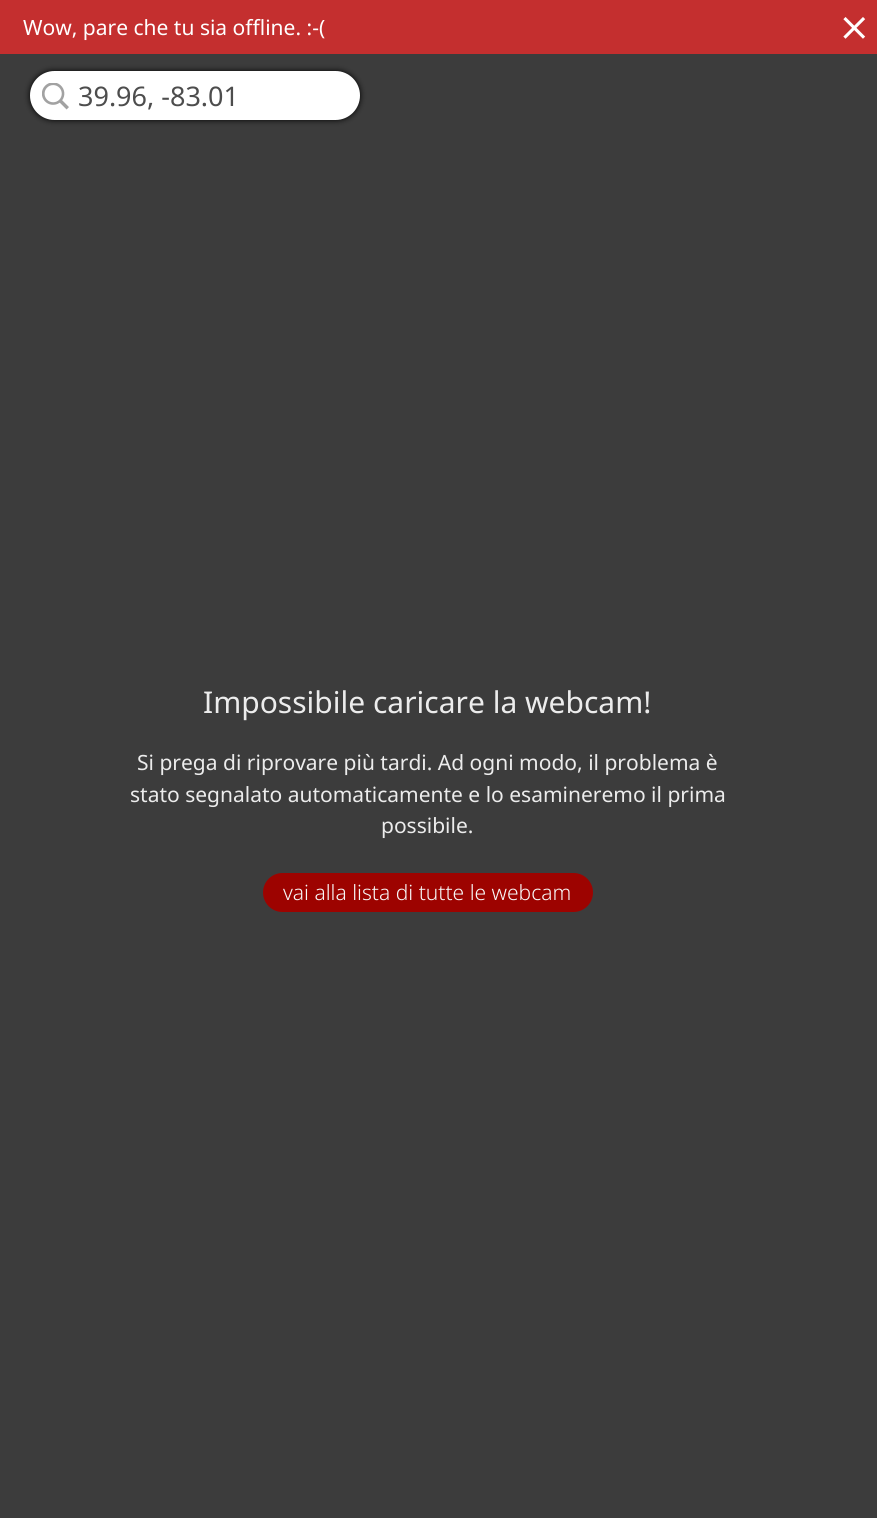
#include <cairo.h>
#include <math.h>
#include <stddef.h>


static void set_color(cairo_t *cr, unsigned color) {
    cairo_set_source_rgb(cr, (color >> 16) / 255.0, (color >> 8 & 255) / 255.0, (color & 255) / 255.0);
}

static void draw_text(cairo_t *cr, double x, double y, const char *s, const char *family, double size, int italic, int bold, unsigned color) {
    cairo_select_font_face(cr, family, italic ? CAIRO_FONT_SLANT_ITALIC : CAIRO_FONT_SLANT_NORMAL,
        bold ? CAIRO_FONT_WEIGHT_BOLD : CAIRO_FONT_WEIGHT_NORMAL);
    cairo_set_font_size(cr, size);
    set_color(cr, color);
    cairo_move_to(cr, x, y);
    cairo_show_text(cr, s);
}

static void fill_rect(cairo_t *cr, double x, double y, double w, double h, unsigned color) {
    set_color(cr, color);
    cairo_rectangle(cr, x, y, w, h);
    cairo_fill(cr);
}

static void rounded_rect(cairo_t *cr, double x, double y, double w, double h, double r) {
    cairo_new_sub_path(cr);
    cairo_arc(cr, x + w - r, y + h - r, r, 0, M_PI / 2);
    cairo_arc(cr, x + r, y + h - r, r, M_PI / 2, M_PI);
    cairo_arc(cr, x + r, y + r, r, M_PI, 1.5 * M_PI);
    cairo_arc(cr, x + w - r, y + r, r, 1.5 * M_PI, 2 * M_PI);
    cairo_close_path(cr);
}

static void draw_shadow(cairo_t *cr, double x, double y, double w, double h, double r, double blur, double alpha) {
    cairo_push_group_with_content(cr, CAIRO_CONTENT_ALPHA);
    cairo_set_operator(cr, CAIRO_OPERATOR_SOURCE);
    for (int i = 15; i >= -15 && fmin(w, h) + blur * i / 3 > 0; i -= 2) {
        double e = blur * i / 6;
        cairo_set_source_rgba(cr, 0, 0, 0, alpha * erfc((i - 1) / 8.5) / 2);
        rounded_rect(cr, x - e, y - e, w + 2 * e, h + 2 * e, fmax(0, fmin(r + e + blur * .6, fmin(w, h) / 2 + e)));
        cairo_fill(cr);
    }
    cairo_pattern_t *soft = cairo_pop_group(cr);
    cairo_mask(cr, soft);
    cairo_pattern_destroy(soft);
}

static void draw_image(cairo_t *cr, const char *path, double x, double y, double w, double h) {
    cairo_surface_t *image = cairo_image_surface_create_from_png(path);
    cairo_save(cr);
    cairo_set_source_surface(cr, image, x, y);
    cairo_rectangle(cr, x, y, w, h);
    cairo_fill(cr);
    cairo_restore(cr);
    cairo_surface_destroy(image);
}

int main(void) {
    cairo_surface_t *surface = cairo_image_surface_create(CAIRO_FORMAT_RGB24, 877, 1518);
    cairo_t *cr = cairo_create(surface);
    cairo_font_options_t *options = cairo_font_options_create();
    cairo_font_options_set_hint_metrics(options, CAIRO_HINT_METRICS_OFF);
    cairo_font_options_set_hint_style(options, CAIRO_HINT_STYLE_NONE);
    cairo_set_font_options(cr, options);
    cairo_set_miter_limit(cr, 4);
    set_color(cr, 0x3C3C3C);
    cairo_paint(cr);
    fill_rect(cr, 0, 0, 877, 54, 0xC42F2F);
    draw_text(cr, 23, 35, "Wow, pare che tu sia offline. :-(", "Noto Sans", 21, 0, 0, 0xFFFFFF);
    draw_image(cr, "assets/img1.png", 843, 17, 23, 22);
    draw_text(cr, 203, 713, "Impossibile caricare la webcam!", "Noto Sans", 30, 0, 0, 0xECECEC);
    draw_text(cr, 137, 770, "Si prega di riprovare più tardi. Ad ogni modo, il problema è", "Noto Sans", 21, 0, 0, 0xECECEC);
    draw_text(cr, 130, 802, "stato segnalato automaticamente e lo esamineremo il prima", "Noto Sans", 21, 0, 0, 0xECECEC);
    draw_text(cr, 381, 833, "possibile.", "Noto Sans", 21, 0, 0, 0xECECEC);
    set_color(cr, 0x9D0300);
    rounded_rect(cr, 263, 873, 330, 39, 19.5);
    cairo_fill(cr);
    draw_text(cr, 283, 900, "vai alla lista di tutte le webcam", "Noto Sans Light", 21, 0, 0, 0xF8F8F8);
    set_color(cr, 0x000000);
    draw_shadow(cr, 30, 71, 330, 49, 24.5, 3, 1);
    set_color(cr, 0xFFFFFF);
    rounded_rect(cr, 30, 71, 330, 49, 24.5);
    cairo_fill(cr);
    draw_image(cr, "assets/img2.png", 42, 83, 27, 27);
    draw_text(cr, 78, 106, "39.96, -83.01", "Noto Sans", 27, 0, 0, 0x4D4D4D);
    cairo_surface_write_to_png(surface, "output.png");
    cairo_font_options_destroy(options);
    cairo_destroy(cr);
    cairo_surface_destroy(surface);
    return 0;
}
